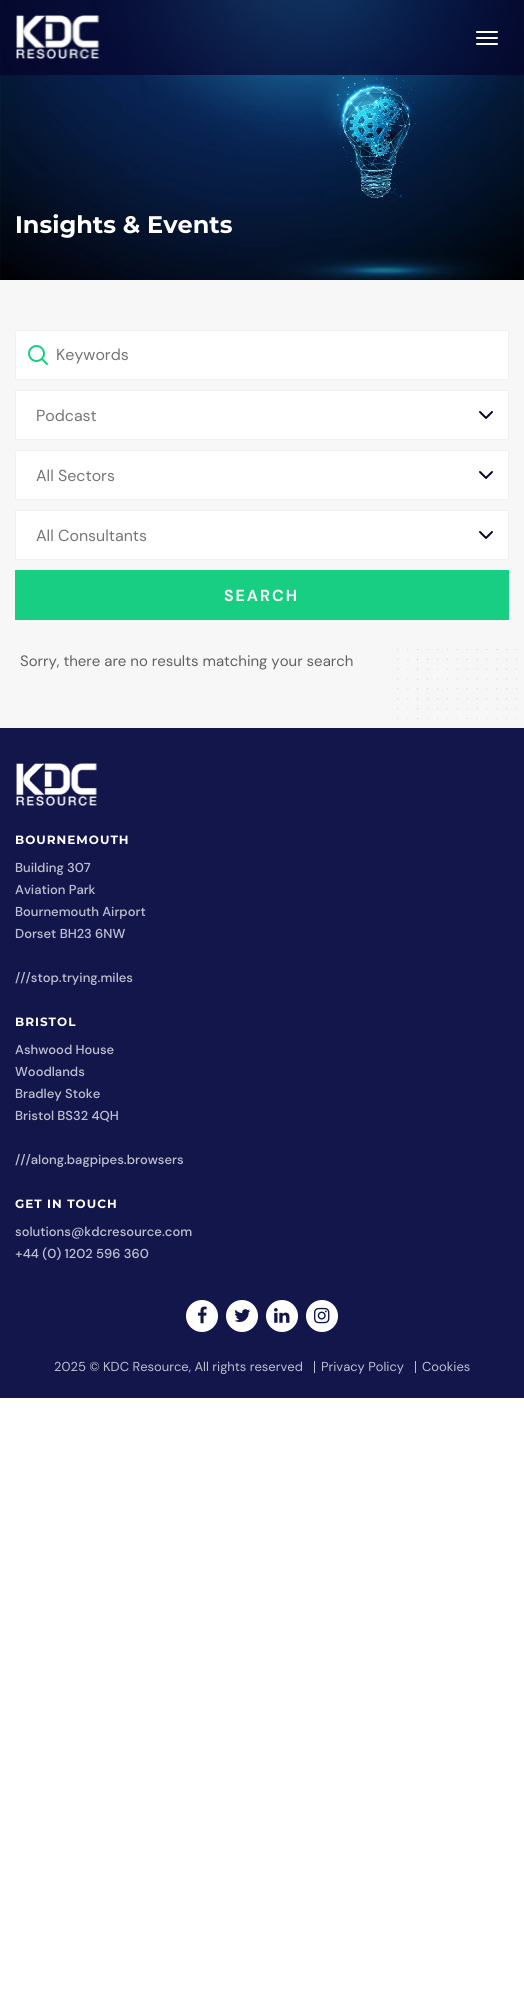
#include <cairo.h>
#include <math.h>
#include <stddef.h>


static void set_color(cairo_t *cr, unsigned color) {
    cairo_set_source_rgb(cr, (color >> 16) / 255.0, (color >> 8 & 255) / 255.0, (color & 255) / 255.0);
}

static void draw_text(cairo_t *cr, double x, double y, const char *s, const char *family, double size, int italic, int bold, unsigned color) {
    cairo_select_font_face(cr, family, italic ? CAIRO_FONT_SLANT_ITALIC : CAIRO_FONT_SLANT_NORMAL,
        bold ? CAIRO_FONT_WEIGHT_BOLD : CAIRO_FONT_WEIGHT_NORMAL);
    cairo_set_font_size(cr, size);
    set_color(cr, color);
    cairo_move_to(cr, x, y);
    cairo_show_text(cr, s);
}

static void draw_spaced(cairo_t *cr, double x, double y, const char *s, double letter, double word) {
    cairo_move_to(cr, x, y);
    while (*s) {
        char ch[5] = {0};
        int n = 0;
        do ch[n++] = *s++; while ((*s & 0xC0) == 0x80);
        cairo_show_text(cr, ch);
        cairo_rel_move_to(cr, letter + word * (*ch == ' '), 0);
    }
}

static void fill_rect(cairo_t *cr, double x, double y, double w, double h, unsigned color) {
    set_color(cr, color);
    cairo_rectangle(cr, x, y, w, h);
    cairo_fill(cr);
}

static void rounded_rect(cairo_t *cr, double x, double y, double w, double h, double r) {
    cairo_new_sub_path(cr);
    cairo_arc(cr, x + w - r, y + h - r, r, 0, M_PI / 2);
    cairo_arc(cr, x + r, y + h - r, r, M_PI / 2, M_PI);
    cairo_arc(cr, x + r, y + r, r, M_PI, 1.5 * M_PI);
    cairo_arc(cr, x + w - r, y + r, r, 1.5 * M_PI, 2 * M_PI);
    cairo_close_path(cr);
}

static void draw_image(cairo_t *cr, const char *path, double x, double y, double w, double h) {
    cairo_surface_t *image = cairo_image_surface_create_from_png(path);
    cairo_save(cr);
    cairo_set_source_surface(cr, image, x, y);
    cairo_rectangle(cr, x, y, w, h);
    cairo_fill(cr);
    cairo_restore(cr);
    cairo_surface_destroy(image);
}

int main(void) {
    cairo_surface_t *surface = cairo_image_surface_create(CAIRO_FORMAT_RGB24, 524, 2009);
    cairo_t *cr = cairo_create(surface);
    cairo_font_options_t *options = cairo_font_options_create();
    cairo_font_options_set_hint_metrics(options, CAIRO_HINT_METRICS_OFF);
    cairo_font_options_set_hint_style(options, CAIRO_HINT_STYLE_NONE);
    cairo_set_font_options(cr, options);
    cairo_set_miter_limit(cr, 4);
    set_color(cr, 0xFFFFFF);
    cairo_paint(cr);
    draw_image(cr, "assets/img2.png", 0, 0, 524, 280);
    cairo_set_source_rgba(cr, 0.02, 0.004, 0.157, 0.65);
    cairo_rectangle(cr, 0, 0, 524, 75);
    cairo_fill(cr);
    draw_image(cr, "assets/img1.png", 16, 15, 84, 44);
    set_color(cr, 0xFFFFFF);
    rounded_rect(cr, 476, 31, 22, 2, 1);
    cairo_fill(cr);
    rounded_rect(cr, 476, 37, 22, 2, 1);
    cairo_fill(cr);
    rounded_rect(cr, 476, 43, 22, 2, 1);
    cairo_fill(cr);
    draw_text(cr, 15, 233, "Insights & Events", "Montserrat", 24, 0, 1, 0xFFFFFF);
    fill_rect(cr, 0, 280, 524, 448, 0xF7F7F7);
    fill_rect(cr, 16, 331, 492, 48, 0xFFFFFF);
    draw_image(cr, "assets/img3.png", 28, 345, 20, 20);
    cairo_rectangle(cr, 15.5, 330.5, 493, 49);
    set_color(cr, 0xF0F0F0);
    cairo_set_line_width(cr, 1);
    cairo_stroke(cr);
    draw_text(cr, 56, 360, "Keywords", "DM Sans", 16, 0, 0, 0x757575);
    fill_rect(cr, 16, 391, 492, 48, 0xFFFFFF);
    draw_image(cr, "assets/img4.png", 479, 411, 14, 8);
    cairo_rectangle(cr, 15.5, 390.5, 493, 49);
    set_color(cr, 0xF0F0F0);
    cairo_stroke(cr);
    draw_text(cr, 36, 421, "Podcast", "DM Sans", 16, 0, 0, 0x757575);
    fill_rect(cr, 16, 451, 492, 48, 0xFFFFFF);
    draw_image(cr, "assets/img4.png", 479, 471, 14, 8);
    cairo_rectangle(cr, 15.5, 450.5, 493, 49);
    set_color(cr, 0xF0F0F0);
    cairo_stroke(cr);
    draw_text(cr, 36, 481, "All Sectors", "DM Sans", 16, 0, 0, 0x757575);
    fill_rect(cr, 16, 511, 492, 48, 0xFFFFFF);
    draw_image(cr, "assets/img4.png", 479, 531, 14, 8);
    cairo_rectangle(cr, 15.5, 510.5, 493, 49);
    set_color(cr, 0xF0F0F0);
    cairo_stroke(cr);
    draw_text(cr, 36, 541, "All Consultants", "DM Sans", 16, 0, 0, 0x757575);
    fill_rect(cr, 15, 570, 494, 50, 0x18CE82);
    cairo_select_font_face(cr, "DM Sans", CAIRO_FONT_SLANT_NORMAL, CAIRO_FONT_WEIGHT_BOLD);
    set_color(cr, 0xFFFFFF);
    draw_spaced(cr, 224, 601, "SEARCH", 2, 0);
    draw_text(cr, 20, 666, "Sorry, there are no results matching your search", "DM Sans", 15, 0, 0, 0x616161);
    draw_image(cr, "assets/img5.png", 397, 649, 120, 79);
    fill_rect(cr, 0, 728, 524, 670, 0x13164B);
    draw_image(cr, "assets/img6.png", 16, 763, 81, 43);
    cairo_select_font_face(cr, "Montserrat", CAIRO_FONT_SLANT_NORMAL, CAIRO_FONT_WEIGHT_BOLD);
    cairo_set_font_size(cr, 12);
    set_color(cr, 0xFFFFFF);
    draw_spaced(cr, 15, 844, "BOURNEMOUTH", 1, 0);
    draw_text(cr, 15, 872, "Building 307", "DM Sans Medium", 13, 0, 0, 0xBDBECD);
    draw_text(cr, 15, 894, "Aviation Park", "DM Sans Medium", 13, 0, 0, 0xBDBECD);
    draw_text(cr, 15, 916, "Bournemouth Airport", "DM Sans Medium", 13, 0, 0, 0xBDBECD);
    draw_text(cr, 15, 938, "Dorset BH23 6NW", "DM Sans Medium", 13, 0, 0, 0xBDBECD);
    draw_text(cr, 15, 982, "///stop.trying.miles", "DM Sans Medium", 13, 0, 0, 0xBDBECD);
    cairo_select_font_face(cr, "Montserrat", CAIRO_FONT_SLANT_NORMAL, CAIRO_FONT_WEIGHT_BOLD);
    cairo_set_font_size(cr, 12);
    set_color(cr, 0xFFFFFF);
    draw_spaced(cr, 15, 1026, "BRISTOL", 1, 0);
    draw_text(cr, 15, 1054, "Ashwood House", "DM Sans Medium", 13, 0, 0, 0xBDBECD);
    draw_text(cr, 15, 1076, "Woodlands", "DM Sans Medium", 13, 0, 0, 0xBDBECD);
    draw_text(cr, 15, 1098, "Bradley Stoke", "DM Sans Medium", 13, 0, 0, 0xBDBECD);
    draw_text(cr, 15, 1120, "Bristol BS32 4QH", "DM Sans Medium", 13, 0, 0, 0xBDBECD);
    draw_text(cr, 15, 1164, "///along.bagpipes.browsers", "DM Sans Medium", 13, 0, 0, 0xBDBECD);
    cairo_select_font_face(cr, "Montserrat", CAIRO_FONT_SLANT_NORMAL, CAIRO_FONT_WEIGHT_BOLD);
    cairo_set_font_size(cr, 12);
    set_color(cr, 0xFFFFFF);
    draw_spaced(cr, 15, 1208, "GET IN TOUCH", 1, 0);
    draw_text(cr, 15, 1236, "solutions@kdcresource.com", "DM Sans Medium", 13, 0, 0, 0xBDBECD);
    draw_text(cr, 15, 1258, "+44 (0) 1202 596 360", "DM Sans Medium", 13, 0, 0, 0xBDBECD);
    set_color(cr, 0xFFFFFF);
    cairo_new_path(cr);
    cairo_arc(cr, 202, 1316, 16, 0, 2 * M_PI);
    cairo_fill(cr);
    draw_image(cr, "assets/img7.png", 197, 1306, 10, 18);
    cairo_arc(cr, 242, 1316, 16, 0, 2 * M_PI);
    cairo_fill(cr);
    draw_image(cr, "assets/img8.png", 234, 1309, 17, 13);
    cairo_arc(cr, 282, 1316, 16, 0, 2 * M_PI);
    cairo_fill(cr);
    draw_image(cr, "assets/img9.png", 274, 1308, 16, 15);
    cairo_arc(cr, 322, 1316, 16, 0, 2 * M_PI);
    cairo_fill(cr);
    draw_image(cr, "assets/img10.png", 314, 1307, 16, 17);
    draw_text(cr, 54, 1371, "2025 © KDC Resource, All rights reserved", "DM Sans", 13, 0, 0, 0xBDBECD);
    fill_rect(cr, 314, 1361, 1, 12, 0xBDBECD);
    draw_text(cr, 321, 1371, "Privacy Policy", "DM Sans", 13, 0, 0, 0xBDBECD);
    fill_rect(cr, 415, 1361, 1, 12, 0xBDBECD);
    draw_text(cr, 422, 1371, "Cookies", "DM Sans", 13, 0, 0, 0xBDBECD);
    cairo_surface_write_to_png(surface, "output.png");
    cairo_font_options_destroy(options);
    cairo_destroy(cr);
    cairo_surface_destroy(surface);
    return 0;
}
